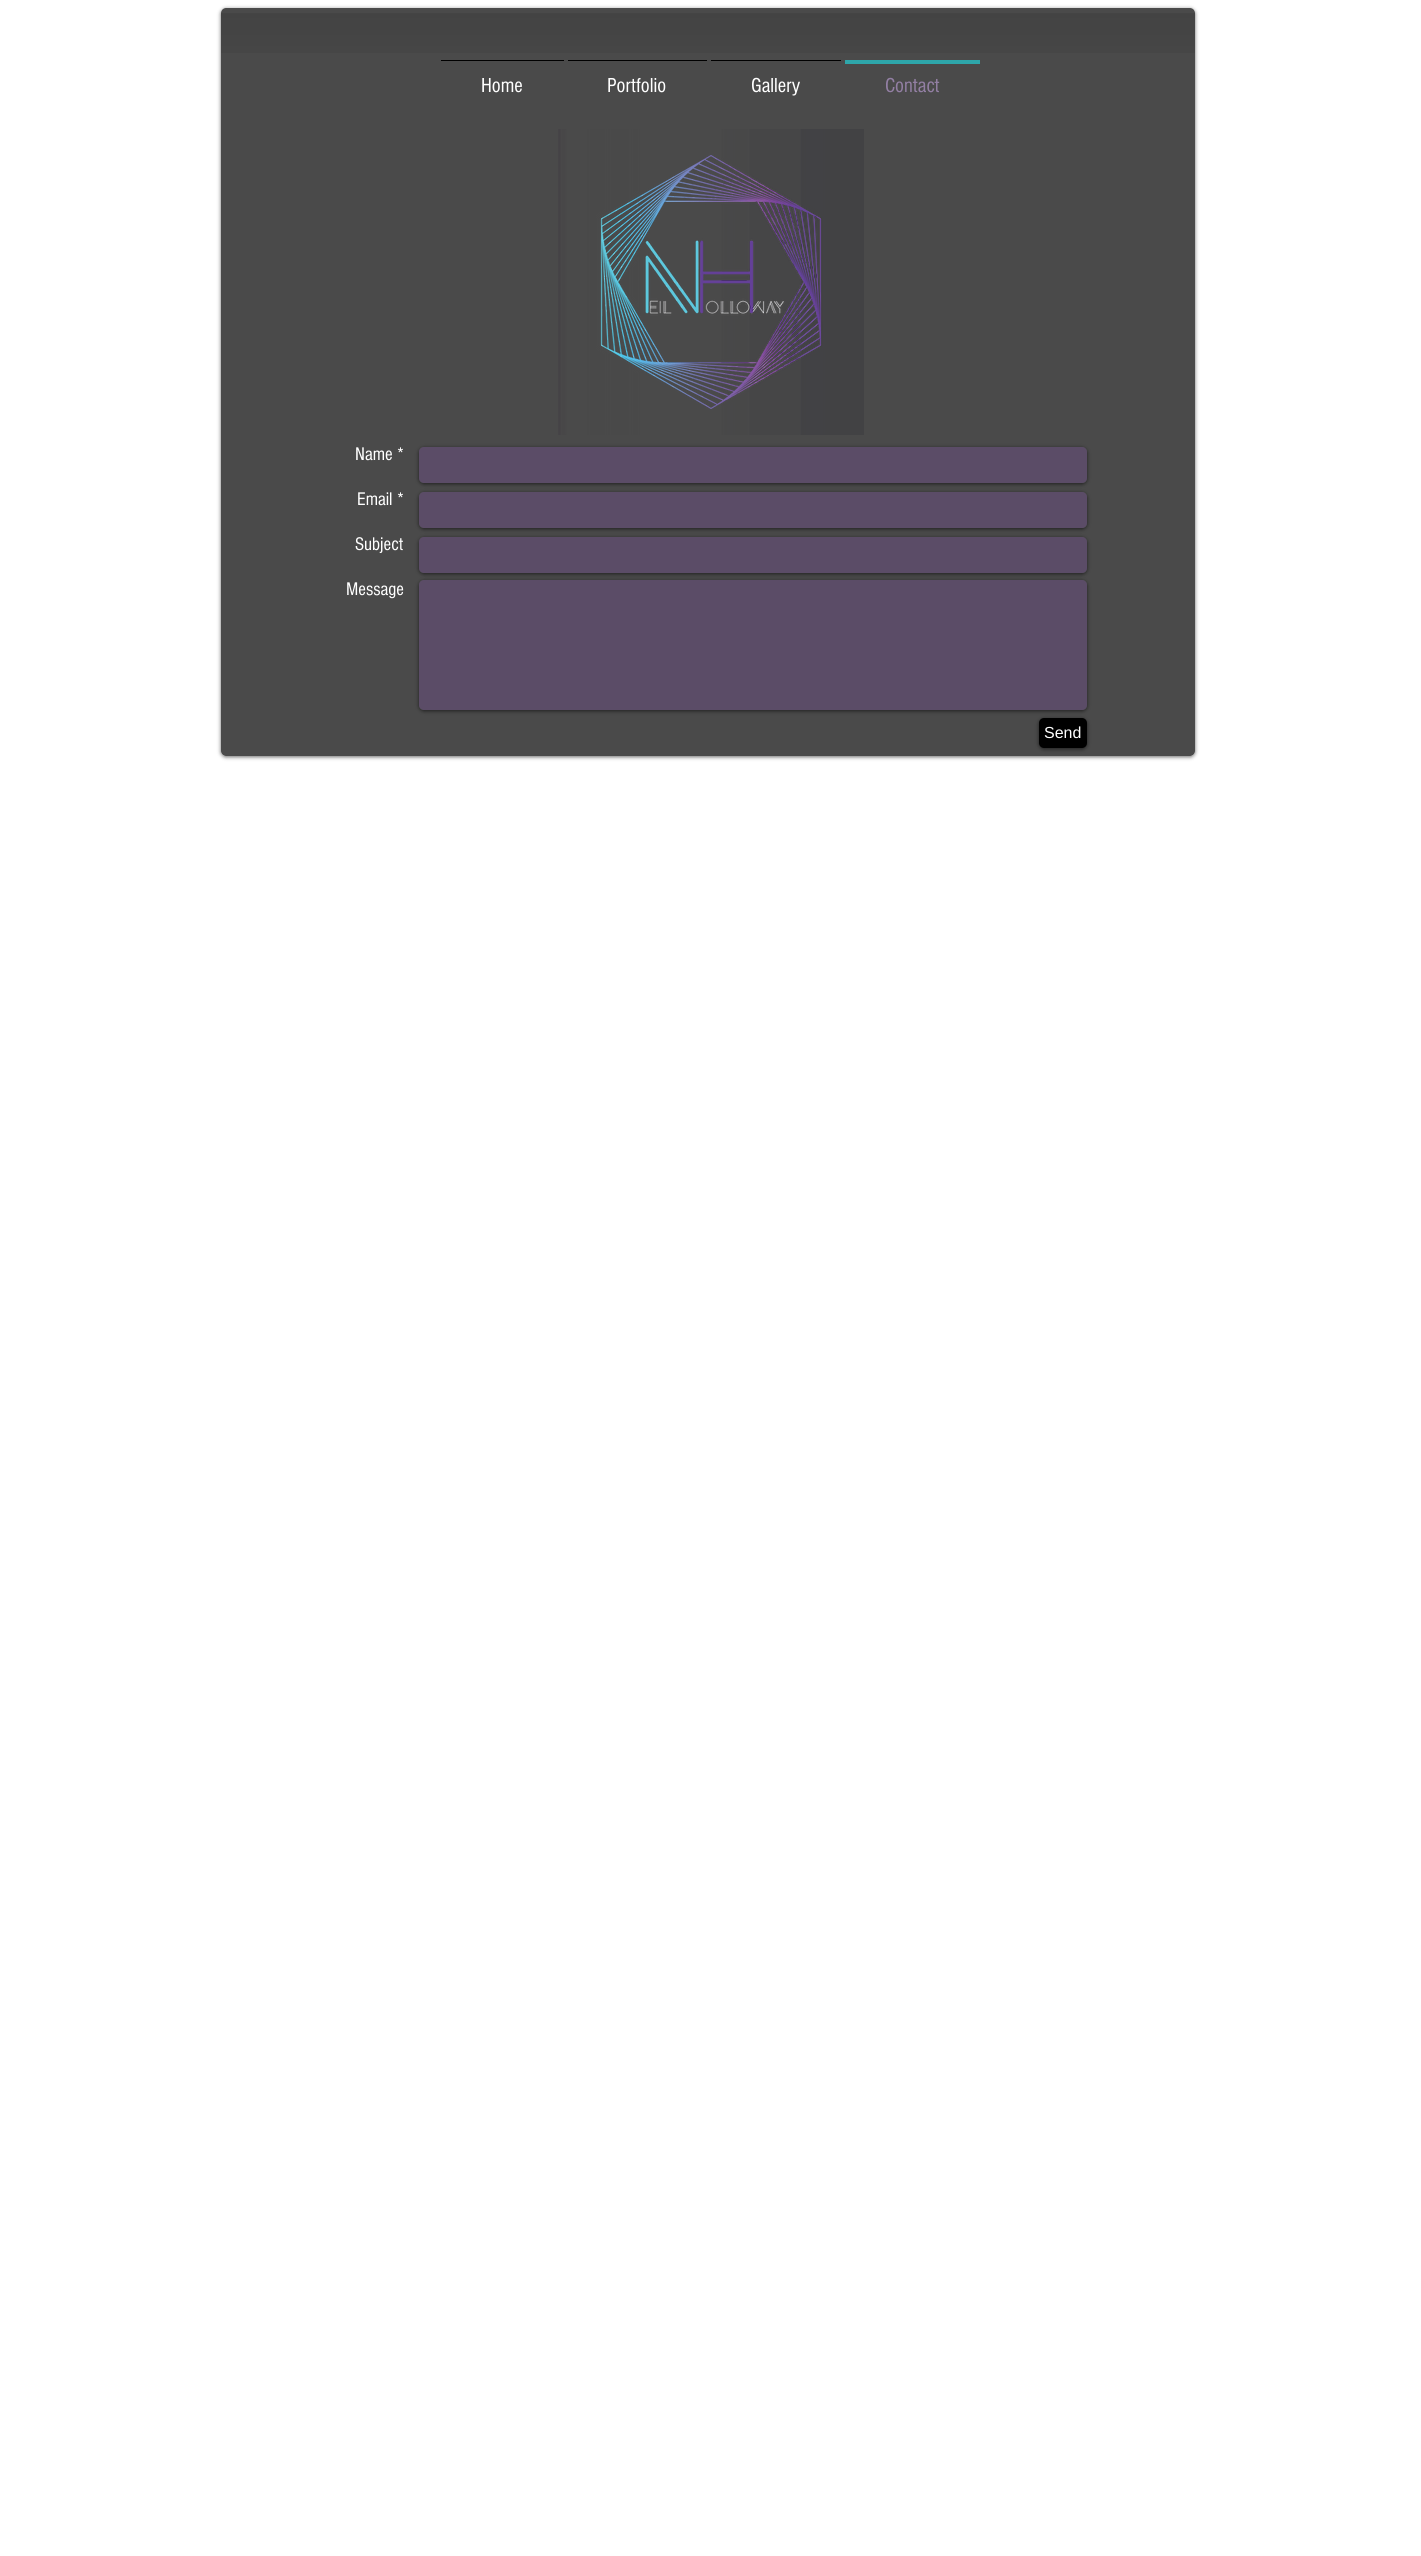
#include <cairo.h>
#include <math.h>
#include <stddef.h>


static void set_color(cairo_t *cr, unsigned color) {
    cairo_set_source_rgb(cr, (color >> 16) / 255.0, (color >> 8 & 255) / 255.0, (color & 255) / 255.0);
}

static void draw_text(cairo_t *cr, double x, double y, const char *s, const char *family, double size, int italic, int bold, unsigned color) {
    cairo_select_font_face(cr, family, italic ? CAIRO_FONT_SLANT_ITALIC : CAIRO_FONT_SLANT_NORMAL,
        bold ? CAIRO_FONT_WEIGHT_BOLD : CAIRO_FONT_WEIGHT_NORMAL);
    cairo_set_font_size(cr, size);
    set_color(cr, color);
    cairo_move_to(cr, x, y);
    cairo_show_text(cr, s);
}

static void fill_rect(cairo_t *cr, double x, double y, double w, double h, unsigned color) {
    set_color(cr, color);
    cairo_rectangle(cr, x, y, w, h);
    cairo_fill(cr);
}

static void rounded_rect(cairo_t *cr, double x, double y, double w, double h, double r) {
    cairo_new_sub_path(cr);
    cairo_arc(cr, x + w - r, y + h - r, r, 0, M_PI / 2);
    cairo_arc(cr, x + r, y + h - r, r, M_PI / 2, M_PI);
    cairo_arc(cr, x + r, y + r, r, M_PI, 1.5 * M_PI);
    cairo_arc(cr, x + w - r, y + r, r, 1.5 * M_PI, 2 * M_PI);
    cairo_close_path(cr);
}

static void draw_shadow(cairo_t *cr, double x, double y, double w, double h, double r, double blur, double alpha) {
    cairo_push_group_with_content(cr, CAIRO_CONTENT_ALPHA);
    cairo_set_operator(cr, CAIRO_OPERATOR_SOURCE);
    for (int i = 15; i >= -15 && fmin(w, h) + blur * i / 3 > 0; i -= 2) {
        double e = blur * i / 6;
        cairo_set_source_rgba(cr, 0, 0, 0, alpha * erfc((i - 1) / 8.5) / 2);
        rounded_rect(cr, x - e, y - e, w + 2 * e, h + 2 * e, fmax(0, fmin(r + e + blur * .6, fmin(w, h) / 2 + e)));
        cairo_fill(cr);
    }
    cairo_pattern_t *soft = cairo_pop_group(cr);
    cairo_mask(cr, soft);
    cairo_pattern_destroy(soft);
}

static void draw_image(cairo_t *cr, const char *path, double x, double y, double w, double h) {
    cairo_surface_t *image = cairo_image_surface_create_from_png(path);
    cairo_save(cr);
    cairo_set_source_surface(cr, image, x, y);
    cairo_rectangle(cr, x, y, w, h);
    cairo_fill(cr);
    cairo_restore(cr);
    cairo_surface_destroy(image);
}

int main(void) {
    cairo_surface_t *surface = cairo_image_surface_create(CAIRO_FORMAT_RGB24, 1421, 2556);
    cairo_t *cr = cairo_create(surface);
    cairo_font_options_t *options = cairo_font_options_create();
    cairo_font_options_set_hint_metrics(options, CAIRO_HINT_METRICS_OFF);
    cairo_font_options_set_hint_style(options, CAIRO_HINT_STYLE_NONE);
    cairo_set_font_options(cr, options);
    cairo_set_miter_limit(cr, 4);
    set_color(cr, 0xFFFFFF);
    cairo_paint(cr);
    cairo_save(cr);
    cairo_set_fill_rule(cr, CAIRO_FILL_RULE_EVEN_ODD);
    cairo_new_path(cr);
    cairo_move_to(cr, 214, 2);
    cairo_line_to(cr, 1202, 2);
    cairo_line_to(cr, 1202, 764);
    cairo_line_to(cr, 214, 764);
    cairo_close_path(cr);
    cairo_move_to(cr, 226, 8);
    cairo_line_to(cr, 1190, 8);
    cairo_curve_to(cr, 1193, 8, 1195, 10, 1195, 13);
    cairo_line_to(cr, 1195, 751);
    cairo_curve_to(cr, 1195, 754, 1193, 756, 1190, 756);
    cairo_line_to(cr, 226, 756);
    cairo_curve_to(cr, 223, 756, 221, 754, 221, 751);
    cairo_line_to(cr, 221, 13);
    cairo_curve_to(cr, 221, 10, 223, 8, 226, 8);
    cairo_close_path(cr);
    cairo_clip(cr);
    set_color(cr, 0x000000);
    draw_shadow(cr, 221, 9, 974, 748, 5, 2, 0.6);
    cairo_restore(cr);
    cairo_set_source_rgba(cr, 0, 0, 0, 0.71);
    rounded_rect(cr, 221, 8, 974, 748, 5);
    cairo_fill(cr);
    draw_image(cr, "assets/img1.png", 221, 13, 974, 40);
    fill_rect(cr, 441, 60, 123, 1, 0x000000);
    draw_text(cr, 481, 92, "Home", "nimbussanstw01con", 21, 0, 0, 0xFFFFFF);
    fill_rect(cr, 568, 60, 139, 1, 0x000000);
    draw_text(cr, 607, 92, "Portfolio", "nimbussanstw01con", 21, 0, 0, 0xFFFFFF);
    fill_rect(cr, 711, 60, 130, 1, 0x000000);
    draw_text(cr, 751, 92, "Gallery", "nimbussanstw01con", 21, 0, 0, 0xFFFFFF);
    fill_rect(cr, 845, 60, 135, 4, 0x2EA6AA);
    draw_text(cr, 885, 92, "Contact", "nimbussanstw01con", 21, 0, 0, 0x937FA4);
    draw_image(cr, "assets/img2.png", 558, 129, 306, 306);
    draw_text(cr, 355, 460, "Name *", "nimbussanstw01con", 19, 0, 0, 0xFFFFFF);
    cairo_save(cr);
    cairo_set_fill_rule(cr, CAIRO_FILL_RULE_EVEN_ODD);
    cairo_new_path(cr);
    cairo_move_to(cr, 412, 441);
    cairo_line_to(cr, 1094, 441);
    cairo_line_to(cr, 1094, 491);
    cairo_line_to(cr, 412, 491);
    cairo_close_path(cr);
    cairo_move_to(cr, 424, 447);
    cairo_line_to(cr, 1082, 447);
    cairo_curve_to(cr, 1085, 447, 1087, 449, 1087, 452);
    cairo_line_to(cr, 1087, 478);
    cairo_curve_to(cr, 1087, 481, 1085, 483, 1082, 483);
    cairo_line_to(cr, 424, 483);
    cairo_curve_to(cr, 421, 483, 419, 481, 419, 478);
    cairo_line_to(cr, 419, 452);
    cairo_curve_to(cr, 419, 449, 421, 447, 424, 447);
    cairo_close_path(cr);
    cairo_clip(cr);
    set_color(cr, 0x000000);
    draw_shadow(cr, 419, 448, 668, 36, 5, 2, 0.6);
    cairo_restore(cr);
    cairo_set_source_rgba(cr, 0.392, 0.306, 0.467, 0.65);
    rounded_rect(cr, 419, 447, 668, 36, 5);
    cairo_fill(cr);
    draw_text(cr, 357, 505, "Email *", "nimbussanstw01con", 19, 0, 0, 0xFFFFFF);
    cairo_save(cr);
    cairo_set_fill_rule(cr, CAIRO_FILL_RULE_EVEN_ODD);
    cairo_new_path(cr);
    cairo_move_to(cr, 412, 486);
    cairo_line_to(cr, 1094, 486);
    cairo_line_to(cr, 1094, 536);
    cairo_line_to(cr, 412, 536);
    cairo_close_path(cr);
    cairo_move_to(cr, 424, 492);
    cairo_line_to(cr, 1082, 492);
    cairo_curve_to(cr, 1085, 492, 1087, 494, 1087, 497);
    cairo_line_to(cr, 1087, 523);
    cairo_curve_to(cr, 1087, 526, 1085, 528, 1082, 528);
    cairo_line_to(cr, 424, 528);
    cairo_curve_to(cr, 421, 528, 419, 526, 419, 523);
    cairo_line_to(cr, 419, 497);
    cairo_curve_to(cr, 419, 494, 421, 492, 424, 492);
    cairo_close_path(cr);
    cairo_clip(cr);
    set_color(cr, 0x000000);
    draw_shadow(cr, 419, 493, 668, 36, 5, 2, 0.6);
    cairo_restore(cr);
    cairo_set_source_rgba(cr, 0.392, 0.306, 0.467, 0.65);
    rounded_rect(cr, 419, 492, 668, 36, 5);
    cairo_fill(cr);
    draw_text(cr, 355, 550, "Subject", "nimbussanstw01con", 19, 0, 0, 0xFFFFFF);
    cairo_save(cr);
    cairo_set_fill_rule(cr, CAIRO_FILL_RULE_EVEN_ODD);
    cairo_new_path(cr);
    cairo_move_to(cr, 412, 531);
    cairo_line_to(cr, 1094, 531);
    cairo_line_to(cr, 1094, 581);
    cairo_line_to(cr, 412, 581);
    cairo_close_path(cr);
    cairo_move_to(cr, 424, 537);
    cairo_line_to(cr, 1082, 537);
    cairo_curve_to(cr, 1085, 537, 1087, 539, 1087, 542);
    cairo_line_to(cr, 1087, 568);
    cairo_curve_to(cr, 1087, 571, 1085, 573, 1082, 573);
    cairo_line_to(cr, 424, 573);
    cairo_curve_to(cr, 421, 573, 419, 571, 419, 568);
    cairo_line_to(cr, 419, 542);
    cairo_curve_to(cr, 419, 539, 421, 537, 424, 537);
    cairo_close_path(cr);
    cairo_clip(cr);
    set_color(cr, 0x000000);
    draw_shadow(cr, 419, 538, 668, 36, 5, 2, 0.6);
    cairo_restore(cr);
    cairo_set_source_rgba(cr, 0.392, 0.306, 0.467, 0.65);
    rounded_rect(cr, 419, 537, 668, 36, 5);
    cairo_fill(cr);
    draw_text(cr, 346, 595, "Message", "nimbussanstw01con", 19, 0, 0, 0xFFFFFF);
    cairo_save(cr);
    cairo_set_fill_rule(cr, CAIRO_FILL_RULE_EVEN_ODD);
    cairo_new_path(cr);
    cairo_move_to(cr, 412, 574);
    cairo_line_to(cr, 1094, 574);
    cairo_line_to(cr, 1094, 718);
    cairo_line_to(cr, 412, 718);
    cairo_close_path(cr);
    cairo_move_to(cr, 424, 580);
    cairo_line_to(cr, 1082, 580);
    cairo_curve_to(cr, 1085, 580, 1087, 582, 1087, 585);
    cairo_line_to(cr, 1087, 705);
    cairo_curve_to(cr, 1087, 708, 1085, 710, 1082, 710);
    cairo_line_to(cr, 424, 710);
    cairo_curve_to(cr, 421, 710, 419, 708, 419, 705);
    cairo_line_to(cr, 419, 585);
    cairo_curve_to(cr, 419, 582, 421, 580, 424, 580);
    cairo_close_path(cr);
    cairo_clip(cr);
    set_color(cr, 0x000000);
    draw_shadow(cr, 419, 581, 668, 130, 5, 2, 0.6);
    cairo_restore(cr);
    cairo_set_source_rgba(cr, 0.392, 0.306, 0.467, 0.65);
    rounded_rect(cr, 419, 580, 668, 130, 5);
    cairo_fill(cr);
    set_color(cr, 0x000000);
    draw_shadow(cr, 1039, 719, 48, 30, 5, 2, 0.6);
    set_color(cr, 0x000000);
    rounded_rect(cr, 1039, 718, 48, 30, 5);
    cairo_fill(cr);
    draw_text(cr, 1044, 738, "Send", "Liberation Sans", 16, 0, 0, 0xFFFFFF);
    cairo_surface_write_to_png(surface, "output.png");
    cairo_font_options_destroy(options);
    cairo_destroy(cr);
    cairo_surface_destroy(surface);
    return 0;
}
